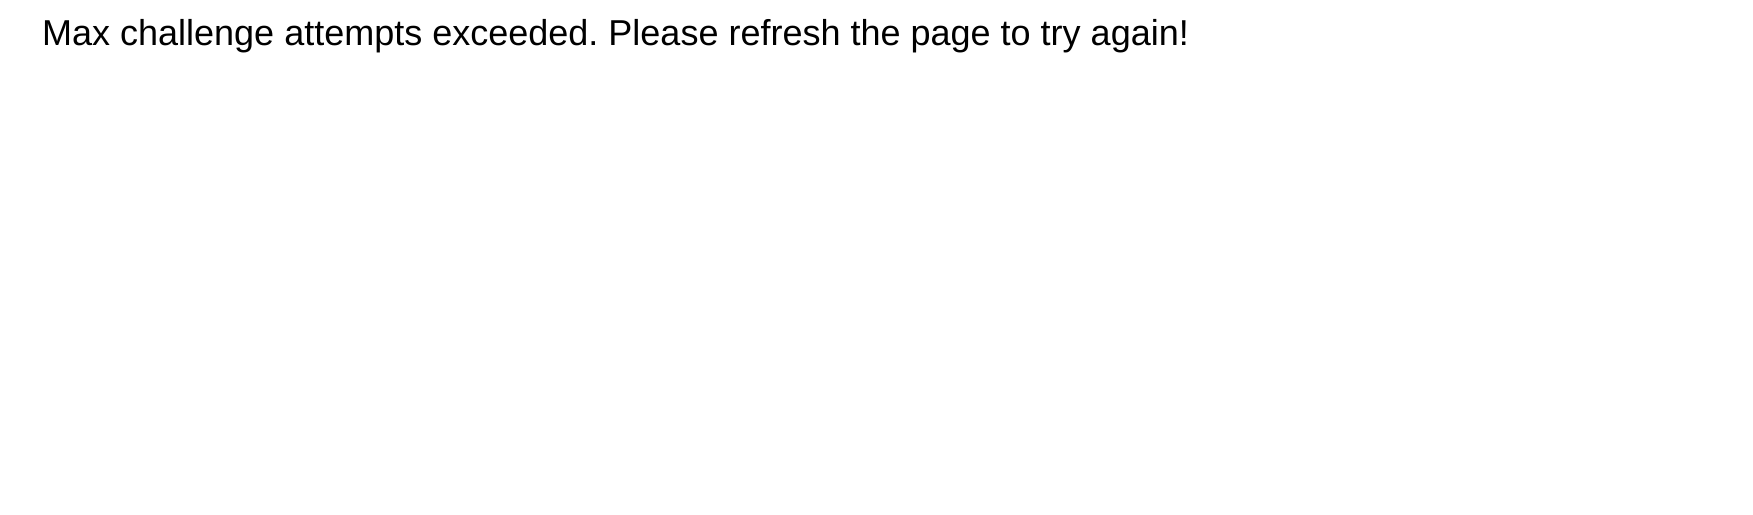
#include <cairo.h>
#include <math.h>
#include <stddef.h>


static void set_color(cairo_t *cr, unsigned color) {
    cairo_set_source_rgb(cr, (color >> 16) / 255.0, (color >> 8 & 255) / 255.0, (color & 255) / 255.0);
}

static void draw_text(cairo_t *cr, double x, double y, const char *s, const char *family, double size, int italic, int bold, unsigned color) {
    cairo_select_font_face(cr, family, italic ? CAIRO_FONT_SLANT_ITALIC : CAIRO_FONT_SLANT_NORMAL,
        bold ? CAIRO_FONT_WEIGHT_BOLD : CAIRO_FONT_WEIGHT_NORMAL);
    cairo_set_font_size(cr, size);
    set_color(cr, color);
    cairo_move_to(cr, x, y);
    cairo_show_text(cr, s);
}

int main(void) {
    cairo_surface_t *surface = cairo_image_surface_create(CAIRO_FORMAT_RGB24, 1753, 515);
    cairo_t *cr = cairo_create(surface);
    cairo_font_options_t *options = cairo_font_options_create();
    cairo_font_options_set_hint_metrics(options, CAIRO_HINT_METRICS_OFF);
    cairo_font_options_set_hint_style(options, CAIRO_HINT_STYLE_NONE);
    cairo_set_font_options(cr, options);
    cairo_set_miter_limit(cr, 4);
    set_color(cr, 0xFFFFFF);
    cairo_paint(cr);
    draw_text(cr, 42, 45, "Max challenge attempts exceeded. Please refresh the page to try again!", "Liberation Sans", 36, 0, 0, 0x000000);
    cairo_surface_write_to_png(surface, "output.png");
    cairo_font_options_destroy(options);
    cairo_destroy(cr);
    cairo_surface_destroy(surface);
    return 0;
}
